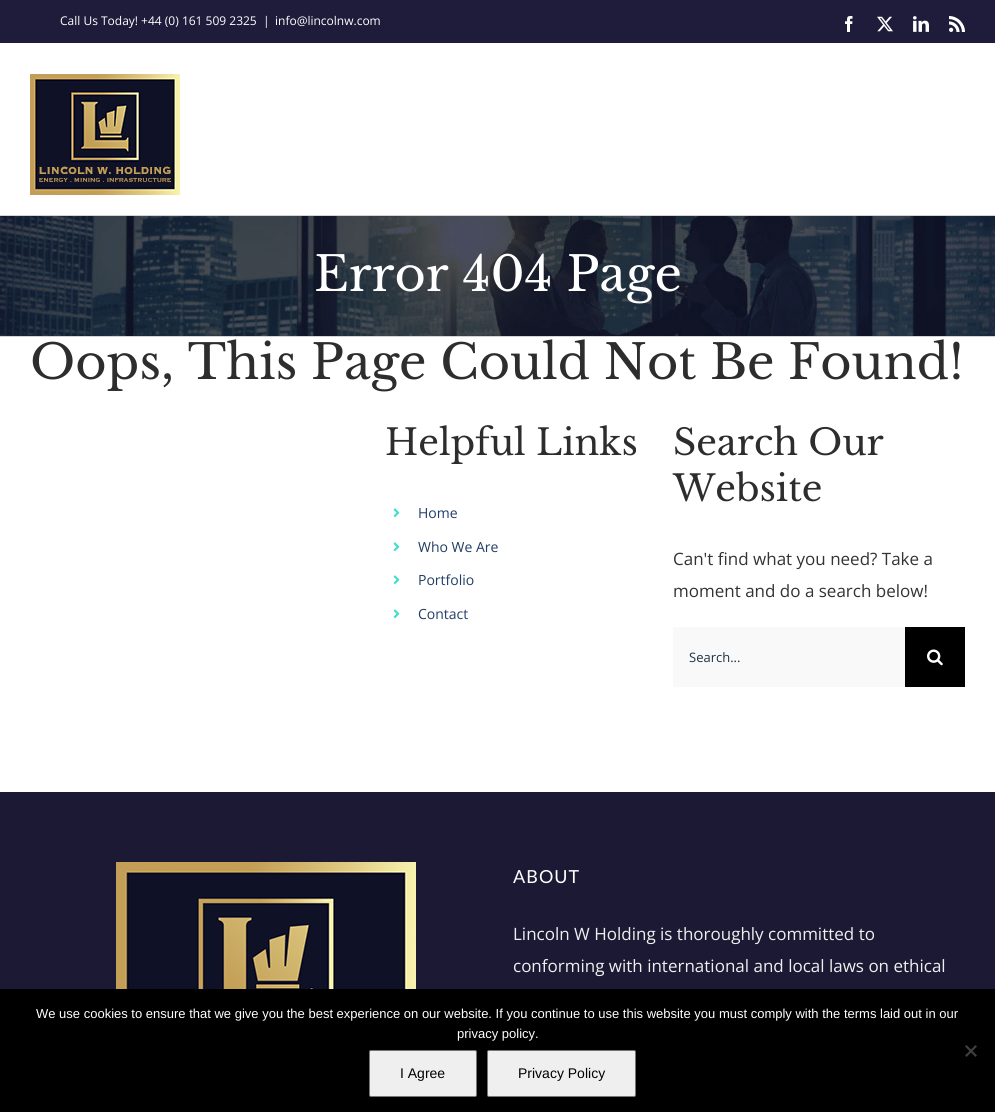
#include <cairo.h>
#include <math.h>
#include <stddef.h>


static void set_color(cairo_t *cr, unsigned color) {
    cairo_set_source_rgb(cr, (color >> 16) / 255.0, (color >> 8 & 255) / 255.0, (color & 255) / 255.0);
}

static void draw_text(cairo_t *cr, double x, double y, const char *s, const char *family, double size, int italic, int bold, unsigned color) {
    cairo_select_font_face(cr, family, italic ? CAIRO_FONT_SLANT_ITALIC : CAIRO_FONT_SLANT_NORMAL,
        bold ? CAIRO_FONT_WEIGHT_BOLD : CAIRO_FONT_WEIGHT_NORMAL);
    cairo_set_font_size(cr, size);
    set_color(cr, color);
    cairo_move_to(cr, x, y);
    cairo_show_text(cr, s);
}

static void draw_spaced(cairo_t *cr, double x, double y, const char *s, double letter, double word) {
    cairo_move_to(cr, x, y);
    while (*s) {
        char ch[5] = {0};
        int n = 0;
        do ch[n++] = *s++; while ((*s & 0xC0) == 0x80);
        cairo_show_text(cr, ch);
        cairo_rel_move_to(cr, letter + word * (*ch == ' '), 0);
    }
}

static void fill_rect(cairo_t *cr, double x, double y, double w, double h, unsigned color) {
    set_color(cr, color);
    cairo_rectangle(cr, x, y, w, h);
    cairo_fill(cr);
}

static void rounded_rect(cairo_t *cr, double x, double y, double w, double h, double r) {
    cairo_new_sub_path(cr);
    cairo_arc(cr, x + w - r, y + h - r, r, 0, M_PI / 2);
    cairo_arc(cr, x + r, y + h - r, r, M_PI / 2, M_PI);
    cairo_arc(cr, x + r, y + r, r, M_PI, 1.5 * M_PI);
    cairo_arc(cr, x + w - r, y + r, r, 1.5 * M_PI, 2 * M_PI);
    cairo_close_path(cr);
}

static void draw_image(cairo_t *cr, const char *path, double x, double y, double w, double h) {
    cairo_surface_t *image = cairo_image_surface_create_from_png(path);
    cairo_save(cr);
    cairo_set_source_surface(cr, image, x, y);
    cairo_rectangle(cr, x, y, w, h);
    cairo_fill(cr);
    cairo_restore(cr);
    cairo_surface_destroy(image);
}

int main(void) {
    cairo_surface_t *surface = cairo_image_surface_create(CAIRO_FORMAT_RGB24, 995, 1112);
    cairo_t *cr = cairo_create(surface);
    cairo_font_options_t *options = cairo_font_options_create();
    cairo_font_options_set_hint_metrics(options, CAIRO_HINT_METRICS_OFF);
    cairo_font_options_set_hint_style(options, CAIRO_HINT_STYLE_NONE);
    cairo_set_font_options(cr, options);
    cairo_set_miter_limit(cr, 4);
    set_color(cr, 0xFFFFFF);
    cairo_paint(cr);
    fill_rect(cr, 0, 0, 995, 43, 0x1F1B3B);
    draw_text(cr, 60, 25, "Call Us Today! +44 (0) 161 509 2325", "Open Sans", 12, 0, 0, 0xFFFFFF);
    draw_text(cr, 263, 25, "|", "Open Sans", 12, 0, 0, 0xFFFFFF);
    draw_text(cr, 275, 25, "info@lincolnw.com", "Open Sans", 12, 0, 0, 0xFFFFFF);
    draw_image(cr, "assets/img1.png", 845, 16, 8, 16);
    draw_image(cr, "assets/img2.png", 877, 16, 16, 16);
    draw_image(cr, "assets/img3.png", 913, 16, 16, 16);
    draw_image(cr, "assets/img4.png", 949, 16, 16, 16);
    draw_image(cr, "assets/img5.png", 30, 74, 150, 121);
    draw_image(cr, "assets/img6.png", 0, 216, 995, 120);
    fill_rect(cr, 0, 215, 995, 1, 0xD2D3D4);
    fill_rect(cr, 0, 336, 995, 1, 0xD2D3D4);
    draw_text(cr, 314, 291, "Error 404 Page", "Libre Baskerville", 47.9, 0, 0, 0xFFFFFF);
    draw_text(cr, 30, 379, "Oops, This Page Could Not Be Found!", "Libre Baskerville", 47.9, 0, 0, 0x2D2D2D);
    draw_text(cr, 385, 455, "Helpful Links", "Libre Baskerville", 36, 0, 0, 0x2D2D2D);
    draw_image(cr, "assets/img7.png", 393, 508, 7, 10);
    draw_text(cr, 418, 518, "Home", "Open Sans", 14, 0, 0, 0x213D65);
    draw_image(cr, "assets/img7.png", 393, 542, 7, 10);
    draw_text(cr, 418, 552, "Who We Are", "Open Sans", 14, 0, 0, 0x213D65);
    draw_image(cr, "assets/img7.png", 393, 575, 7, 10);
    draw_text(cr, 418, 585, "Portfolio", "Open Sans", 14, 0, 0, 0x213D65);
    draw_image(cr, "assets/img7.png", 393, 609, 7, 10);
    draw_text(cr, 418, 619, "Contact", "Open Sans", 14, 0, 0, 0x213D65);
    draw_text(cr, 673, 455, "Search Our", "Libre Baskerville", 36, 0, 0, 0x2D2D2D);
    draw_text(cr, 673, 501, "Website", "Libre Baskerville", 36, 0, 0, 0x2D2D2D);
    draw_text(cr, 673, 565, "Can't find what you need? Take a", "Open Sans", 17, 0, 0, 0x333333);
    draw_text(cr, 673, 597, "moment and do a search below!", "Open Sans", 17, 0, 0, 0x333333);
    fill_rect(cr, 673, 627, 232, 60, 0xF9F9F9);
    draw_text(cr, 689, 662, "Search...", "Open Sans", 13, 0, 0, 0x1E3244);
    fill_rect(cr, 905, 627, 60, 60, 0x000000);
    draw_image(cr, "assets/img8.png", 927, 649, 16, 17);
    fill_rect(cr, 0, 792, 995, 197, 0x1B1934);
    draw_image(cr, "assets/img9.png", 116, 862, 300, 127);
    cairo_select_font_face(cr, "Lato", CAIRO_FONT_SLANT_NORMAL, CAIRO_FONT_WEIGHT_NORMAL);
    cairo_set_font_size(cr, 18);
    set_color(cr, 0xFFFFFF);
    draw_spaced(cr, 513, 883, "ABOUT", 1, 0);
    draw_text(cr, 513, 940, "Lincoln W Holding is thoroughly committed to", "Open Sans", 17, 0, 0, 0xEFEFEF);
    draw_text(cr, 513, 972, "conforming with international and local laws on ethical", "Open Sans", 17, 0, 0, 0xEFEFEF);
    fill_rect(cr, 0, 989, 995, 123, 0x000000);
    draw_text(cr, 36, 1018, "We use cookies to ensure that we give you the best experience on our website. If you continue to use this website you must comply with the terms laid out in our", "Liberation Sans", 13, 0, 0, 0xFFFFFF);
    draw_text(cr, 457, 1038, "privacy policy.", "Liberation Sans", 13, 0, 0, 0xFFFFFF);
    set_color(cr, 0x404040);
    cairo_new_path(cr);
    cairo_move_to(cr, 975.5, 1045);
    cairo_line_to(cr, 977, 1046.5);
    cairo_line_to(cr, 966.5, 1057);
    cairo_line_to(cr, 965, 1055.5);
    cairo_close_path(cr);
    cairo_fill(cr);
    cairo_new_path(cr);
    cairo_move_to(cr, 965, 1046.5);
    cairo_line_to(cr, 966.5, 1045);
    cairo_line_to(cr, 977, 1055.5);
    cairo_line_to(cr, 975.5, 1057);
    cairo_close_path(cr);
    cairo_fill(cr);
    set_color(cr, 0xEFEFEF);
    rounded_rect(cr, 369.5, 1050.5, 107, 46, 1.5);
    cairo_fill_preserve(cr);
    set_color(cr, 0x767676);
    cairo_set_line_width(cr, 1);
    cairo_stroke(cr);
    draw_text(cr, 400, 1078, "I Agree", "Liberation Sans", 14, 0, 0, 0x000000);
    set_color(cr, 0xEFEFEF);
    rounded_rect(cr, 487.5, 1050.5, 148, 46, 1.5);
    cairo_fill_preserve(cr);
    set_color(cr, 0x767676);
    cairo_stroke(cr);
    draw_text(cr, 518, 1078, "Privacy Policy", "Liberation Sans", 14, 0, 0, 0x000000);
    cairo_surface_write_to_png(surface, "output.png");
    cairo_font_options_destroy(options);
    cairo_destroy(cr);
    cairo_surface_destroy(surface);
    return 0;
}
